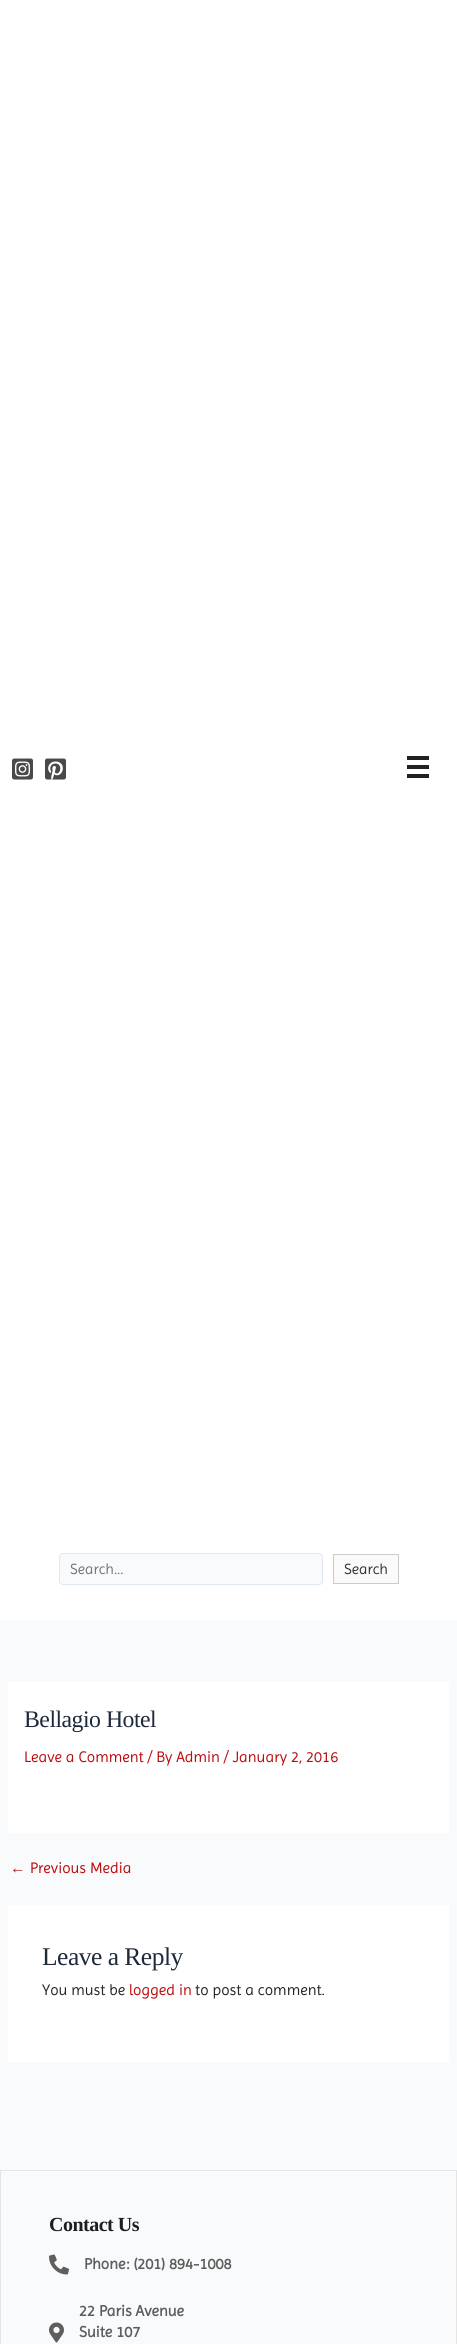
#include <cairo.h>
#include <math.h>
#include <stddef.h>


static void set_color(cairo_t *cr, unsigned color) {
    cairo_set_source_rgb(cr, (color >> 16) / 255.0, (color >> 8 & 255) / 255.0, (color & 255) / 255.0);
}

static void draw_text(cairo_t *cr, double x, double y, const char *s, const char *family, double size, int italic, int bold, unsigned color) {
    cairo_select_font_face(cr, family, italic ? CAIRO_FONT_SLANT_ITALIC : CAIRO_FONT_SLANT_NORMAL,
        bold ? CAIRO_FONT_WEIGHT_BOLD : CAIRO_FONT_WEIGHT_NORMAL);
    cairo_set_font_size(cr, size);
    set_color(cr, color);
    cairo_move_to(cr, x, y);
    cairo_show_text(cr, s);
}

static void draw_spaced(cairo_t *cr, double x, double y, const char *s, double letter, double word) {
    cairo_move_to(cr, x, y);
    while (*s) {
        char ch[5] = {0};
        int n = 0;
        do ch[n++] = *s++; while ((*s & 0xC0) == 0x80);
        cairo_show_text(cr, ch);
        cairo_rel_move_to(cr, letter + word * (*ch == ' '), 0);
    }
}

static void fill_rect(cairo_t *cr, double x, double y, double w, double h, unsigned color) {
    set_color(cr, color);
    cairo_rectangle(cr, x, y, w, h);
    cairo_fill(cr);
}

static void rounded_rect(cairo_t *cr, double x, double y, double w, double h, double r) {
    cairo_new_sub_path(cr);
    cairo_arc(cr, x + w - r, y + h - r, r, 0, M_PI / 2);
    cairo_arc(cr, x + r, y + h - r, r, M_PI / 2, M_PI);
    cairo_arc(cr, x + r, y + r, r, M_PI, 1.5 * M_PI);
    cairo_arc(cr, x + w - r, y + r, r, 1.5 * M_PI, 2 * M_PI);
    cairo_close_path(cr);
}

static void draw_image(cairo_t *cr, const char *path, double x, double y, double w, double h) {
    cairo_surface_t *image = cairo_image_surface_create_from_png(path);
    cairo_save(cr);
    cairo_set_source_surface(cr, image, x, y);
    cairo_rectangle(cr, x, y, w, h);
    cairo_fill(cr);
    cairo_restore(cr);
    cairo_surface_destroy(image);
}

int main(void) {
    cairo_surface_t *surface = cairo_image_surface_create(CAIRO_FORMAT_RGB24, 457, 2344);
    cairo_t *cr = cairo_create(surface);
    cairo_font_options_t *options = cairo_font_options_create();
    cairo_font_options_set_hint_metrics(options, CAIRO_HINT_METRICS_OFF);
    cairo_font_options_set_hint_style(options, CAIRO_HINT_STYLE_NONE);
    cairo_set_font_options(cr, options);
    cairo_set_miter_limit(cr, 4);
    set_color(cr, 0xF9FAFB);
    cairo_paint(cr);
    fill_rect(cr, 0, 0, 457, 1620, 0xFFFFFF);
    draw_image(cr, "assets/img1.png", 12, 758, 21, 22);
    draw_image(cr, "assets/img2.png", 45, 758, 21, 22);
    fill_rect(cr, 407, 756, 22, 4, 0x212121);
    fill_rect(cr, 407, 765, 22, 4, 0x212121);
    fill_rect(cr, 407, 774, 22, 4, 0x212121);
    set_color(cr, 0xF9FAFB);
    rounded_rect(cr, 59.5, 1553.5, 263, 31, 3.5);
    cairo_fill_preserve(cr);
    set_color(cr, 0xE2E8F0);
    cairo_set_line_width(cr, 1);
    cairo_stroke(cr);
    draw_text(cr, 70, 1574, "Search...", "Imprima", 15, 0, 0, 0x757575);
    set_color(cr, 0xFAFAFA);
    cairo_rectangle(cr, 333.5, 1554.5, 65, 29);
    cairo_fill_preserve(cr);
    set_color(cr, 0xCCCCCC);
    cairo_stroke(cr);
    draw_text(cr, 344, 1574, "Search", "Imprima", 15, 0, 0, 0x333333);
    fill_rect(cr, 8, 1682, 441, 151, 0xFFFFFF);
    cairo_select_font_face(cr, "Liberation Serif", CAIRO_FONT_SLANT_NORMAL, CAIRO_FONT_WEIGHT_NORMAL);
    cairo_set_font_size(cr, 23.75);
    set_color(cr, 0x1E293B);
    draw_spaced(cr, 24, 1727, "Bellagio Hotel", -0.5, 0);
    draw_text(cr, 24, 1762, "Leave a Comment / By Admin / January 2, 2016", "Imprima", 15.5, 0, 0, 0xBA0C0C);
    draw_text(cr, 10, 1873, "←", "Liberation Sans", 15.5, 0, 0, 0xBA0C0C);
    draw_text(cr, 30, 1873, "Previous Media", "Imprima", 15.5, 0, 0, 0xBA0C0C);
    fill_rect(cr, 8, 1905, 441, 157, 0xFFFFFF);
    cairo_select_font_face(cr, "Liberation Serif", CAIRO_FONT_SLANT_NORMAL, CAIRO_FONT_WEIGHT_NORMAL);
    cairo_set_font_size(cr, 25.5);
    set_color(cr, 0x1E293B);
    draw_spaced(cr, 42, 1965, "Leave a Reply", -0.5, 0);
    draw_text(cr, 42, 1995, "You must be", "Imprima", 15.5, 0, 0, 0x262626);
    draw_text(cr, 129, 1995, "logged in", "Imprima", 15.5, 0, 0, 0xBA0C0C);
    draw_text(cr, 195, 1995, "to post a comment.", "Imprima", 15.5, 0, 0, 0x262626);
    cairo_rectangle(cr, 0.5, 2170.5, 456, 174);
    set_color(cr, 0xE5E5E5);
    cairo_stroke(cr);
    cairo_select_font_face(cr, "Liberation Serif", CAIRO_FONT_SLANT_NORMAL, CAIRO_FONT_WEIGHT_BOLD);
    cairo_set_font_size(cr, 20);
    set_color(cr, 0x1E1E1E);
    draw_spaced(cr, 49, 2231, "Contact Us", -0.5, 0);
    draw_image(cr, "assets/img3.png", 49, 2254, 20, 21);
    draw_text(cr, 84, 2269, "Phone: (201) 894-1008", "Imprima", 15.5, 0, 1, 0x5E5E5E);
    draw_image(cr, "assets/img4.png", 49, 2322, 15, 21);
    draw_text(cr, 79, 2316, "22 Paris Avenue", "Imprima", 15.5, 0, 1, 0x5E5E5E);
    draw_text(cr, 79, 2337, "Suite 107", "Imprima", 15.5, 0, 1, 0x5E5E5E);
    cairo_surface_write_to_png(surface, "output.png");
    cairo_font_options_destroy(options);
    cairo_destroy(cr);
    cairo_surface_destroy(surface);
    return 0;
}
